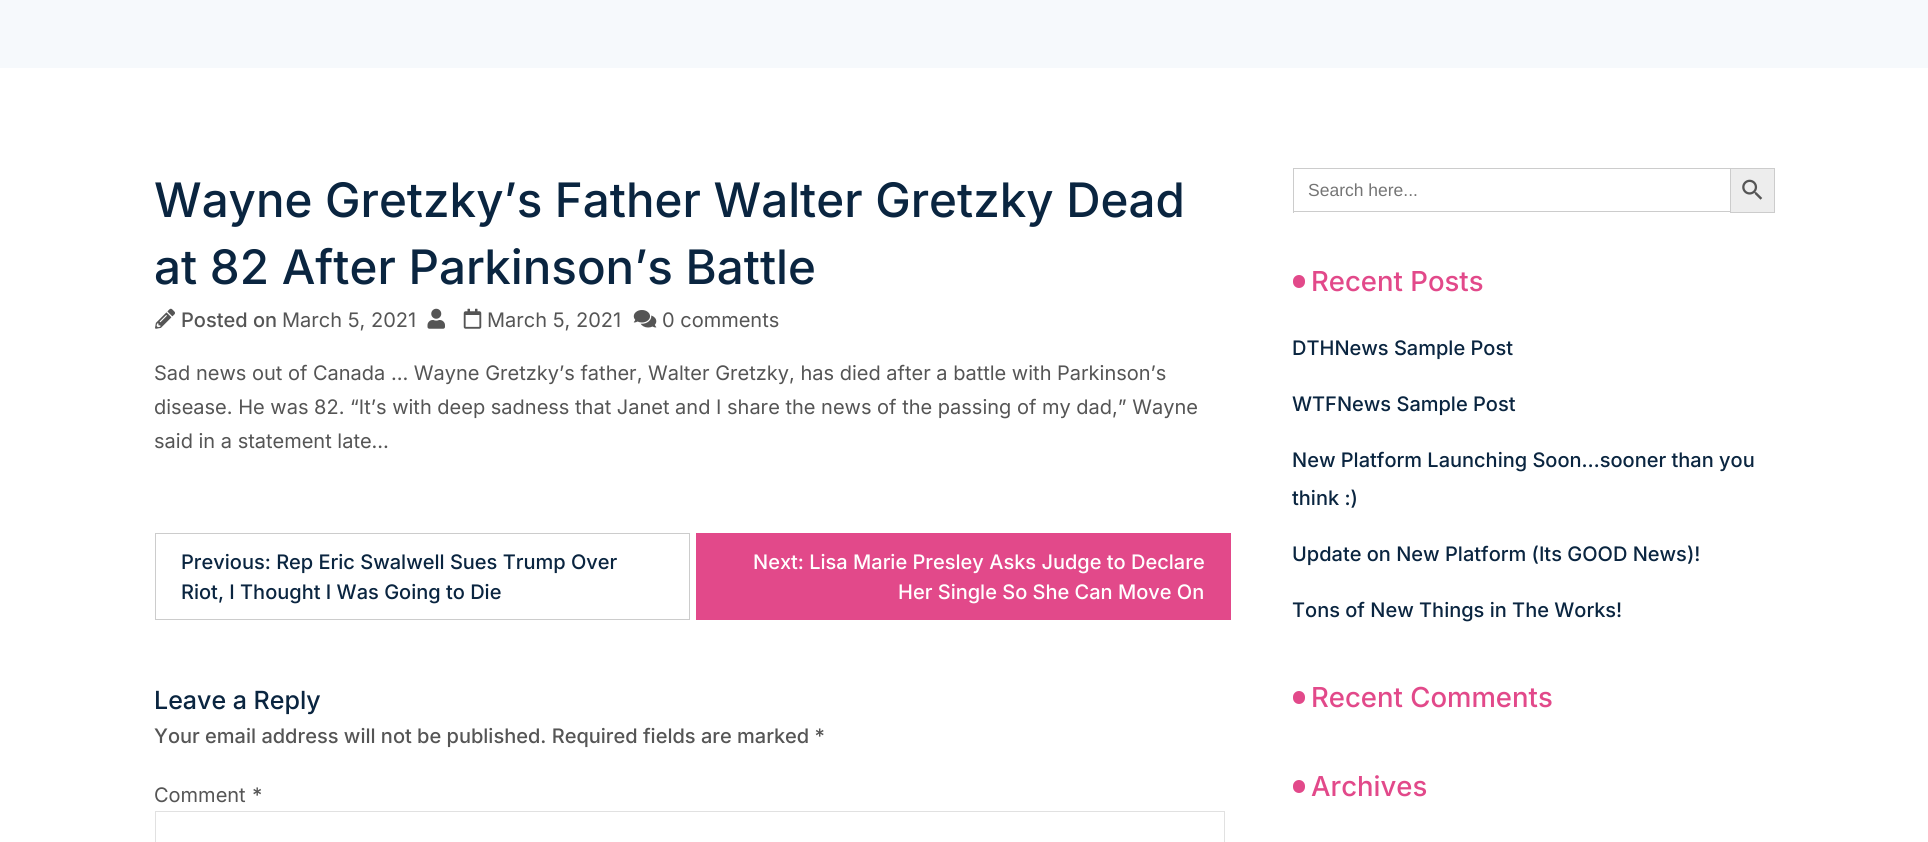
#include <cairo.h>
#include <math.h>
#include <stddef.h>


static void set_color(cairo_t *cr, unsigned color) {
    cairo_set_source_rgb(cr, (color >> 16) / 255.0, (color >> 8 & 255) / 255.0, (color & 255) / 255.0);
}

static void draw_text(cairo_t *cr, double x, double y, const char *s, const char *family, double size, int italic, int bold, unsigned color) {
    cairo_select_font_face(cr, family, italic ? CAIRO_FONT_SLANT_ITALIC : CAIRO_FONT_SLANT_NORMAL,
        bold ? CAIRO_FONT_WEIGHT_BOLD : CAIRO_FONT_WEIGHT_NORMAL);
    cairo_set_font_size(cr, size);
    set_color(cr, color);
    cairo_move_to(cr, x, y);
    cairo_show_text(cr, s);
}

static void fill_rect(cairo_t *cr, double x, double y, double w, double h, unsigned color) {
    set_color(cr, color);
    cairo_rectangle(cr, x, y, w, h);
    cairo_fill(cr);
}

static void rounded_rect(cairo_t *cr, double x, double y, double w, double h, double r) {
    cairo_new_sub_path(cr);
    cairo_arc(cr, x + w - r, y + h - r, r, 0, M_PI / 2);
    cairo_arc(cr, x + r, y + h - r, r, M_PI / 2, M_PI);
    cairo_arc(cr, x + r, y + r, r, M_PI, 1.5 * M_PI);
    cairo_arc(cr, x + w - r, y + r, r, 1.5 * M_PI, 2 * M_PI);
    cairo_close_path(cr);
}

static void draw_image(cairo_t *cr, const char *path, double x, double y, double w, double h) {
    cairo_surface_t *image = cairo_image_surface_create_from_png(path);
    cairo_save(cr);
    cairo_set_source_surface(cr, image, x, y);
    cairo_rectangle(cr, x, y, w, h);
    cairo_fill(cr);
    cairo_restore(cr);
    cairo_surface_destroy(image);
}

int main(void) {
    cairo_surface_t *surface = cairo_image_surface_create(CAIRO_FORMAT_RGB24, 1928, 842);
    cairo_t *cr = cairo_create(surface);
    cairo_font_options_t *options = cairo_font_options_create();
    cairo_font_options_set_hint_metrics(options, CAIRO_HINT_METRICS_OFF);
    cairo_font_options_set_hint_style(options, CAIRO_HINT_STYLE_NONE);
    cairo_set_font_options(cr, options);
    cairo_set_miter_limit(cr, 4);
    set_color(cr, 0xFFFFFF);
    cairo_paint(cr);
    fill_rect(cr, 0, 0, 1928, 68, 0xF6F9FC);
    draw_text(cr, 154, 217, "Wayne Gretzky’s Father Walter Gretzky Dead", "Inter Medium", 47.5, 0, 0, 0x0A2540);
    draw_text(cr, 154, 284, "at 82 After Parkinson’s Battle", "Inter Medium", 47.5, 0, 0, 0x0A2540);
    draw_image(cr, "assets/img1.png", 155, 308, 20, 21);
    draw_text(cr, 181, 327, "Posted on", "Inter Medium", 20, 0, 0, 0x555555);
    draw_text(cr, 282, 327, "March 5, 2021", "Inter", 20, 0, 0, 0x555555);
    draw_image(cr, "assets/img2.png", 427, 308, 18, 21);
    draw_image(cr, "assets/img3.png", 463, 308, 19, 21);
    draw_text(cr, 487, 327, "March 5, 2021", "Inter", 20, 0, 0, 0x555555);
    draw_image(cr, "assets/img4.png", 633, 310, 24, 18);
    draw_text(cr, 662, 327, "0 comments", "Inter", 20, 0, 0, 0x555555);
    draw_text(cr, 154, 380, "Sad news out of Canada … Wayne Gretzky’s father, Walter Gretzky, has died after a battle with Parkinson’s", "Inter", 20, 0, 0, 0x555555);
    draw_text(cr, 154, 414, "disease. He was 82. “It’s with deep sadness that Janet and I share the news of the passing of my dad,” Wayne", "Inter", 20, 0, 0, 0x555555);
    draw_text(cr, 154, 448, "said in a statement late…", "Inter", 20, 0, 0, 0x555555);
    cairo_rectangle(cr, 155.5, 533.5, 534, 86);
    set_color(cr, 0xCCCCCC);
    cairo_set_line_width(cr, 1);
    cairo_stroke(cr);
    draw_text(cr, 181, 569, "Previous: Rep Eric Swalwell Sues Trump Over", "Inter Medium", 20, 0, 0, 0x0A2540);
    draw_text(cr, 181, 599, "Riot, I Thought I Was Going to Die", "Inter Medium", 20, 0, 0, 0x0A2540);
    fill_rect(cr, 696, 533, 535, 87, 0xE2498A);
    draw_text(cr, 753, 569, "Next: Lisa Marie Presley Asks Judge to Declare", "Inter Medium", 20, 0, 0, 0xFFFFFF);
    draw_text(cr, 898, 599, "Her Single So She Can Move On", "Inter Medium", 20, 0, 0, 0xFFFFFF);
    draw_text(cr, 154, 709, "Leave a Reply", "Inter Medium", 25, 0, 0, 0x0A2540);
    draw_text(cr, 154, 743, "Your email address will not be published. Required fields are marked *", "Inter Medium", 20, 0, 0, 0x555555);
    draw_text(cr, 154, 802, "Comment", "Inter", 20, 0, 0, 0x555555);
    draw_text(cr, 252, 802, "*", "Inter Medium", 20, 0, 0, 0x555555);
    cairo_rectangle(cr, 155.5, 811.5, 1069, 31);
    set_color(cr, 0xE1E1E1);
    cairo_stroke(cr);
    fill_rect(cr, 1293, 168, 437, 1, 0xCCCCCC);
    fill_rect(cr, 1293, 211, 437, 1, 0xCCCCCC);
    fill_rect(cr, 1293, 168, 1, 45, 0xCCCCCC);
    draw_text(cr, 1308, 196, "Search here...", "Liberation Sans", 17.5, 0, 0, 0x757575);
    set_color(cr, 0xEDEDED);
    cairo_rectangle(cr, 1730.5, 168.5, 44, 44);
    cairo_fill_preserve(cr);
    set_color(cr, 0xCCCCCC);
    cairo_stroke(cr);
    draw_image(cr, "assets/img5.png", 1742, 179, 21, 21);
    set_color(cr, 0xE2498A);
    rounded_rect(cr, 1293, 275, 12, 13, 6);
    cairo_fill(cr);
    draw_text(cr, 1311, 291, "Recent Posts", "Inter Medium", 27.5, 0, 0, 0xE2498A);
    draw_text(cr, 1292, 355, "DTHNews Sample Post", "Inter Medium", 20, 0, 0, 0x0A2540);
    draw_text(cr, 1292, 411, "WTFNews Sample Post", "Inter Medium", 20, 0, 0, 0x0A2540);
    draw_text(cr, 1292, 467, "New Platform Launching Soon…sooner than you", "Inter Medium", 20, 0, 0, 0x0A2540);
    draw_text(cr, 1292, 505, "think :)", "Inter Medium", 20, 0, 0, 0x0A2540);
    draw_text(cr, 1292, 561, "Update on New Platform (Its GOOD News)!", "Inter Medium", 20, 0, 0, 0x0A2540);
    draw_text(cr, 1292, 617, "Tons of New Things in The Works!", "Inter Medium", 20, 0, 0, 0x0A2540);
    set_color(cr, 0xE2498A);
    rounded_rect(cr, 1293, 691, 12, 13, 6);
    cairo_fill(cr);
    draw_text(cr, 1311, 707, "Recent Comments", "Inter Medium", 27.5, 0, 0, 0xE2498A);
    rounded_rect(cr, 1293, 780, 12, 13, 6);
    cairo_fill(cr);
    draw_text(cr, 1311, 796, "Archives", "Inter Medium", 27.5, 0, 0, 0xE2498A);
    cairo_surface_write_to_png(surface, "output.png");
    cairo_font_options_destroy(options);
    cairo_destroy(cr);
    cairo_surface_destroy(surface);
    return 0;
}
